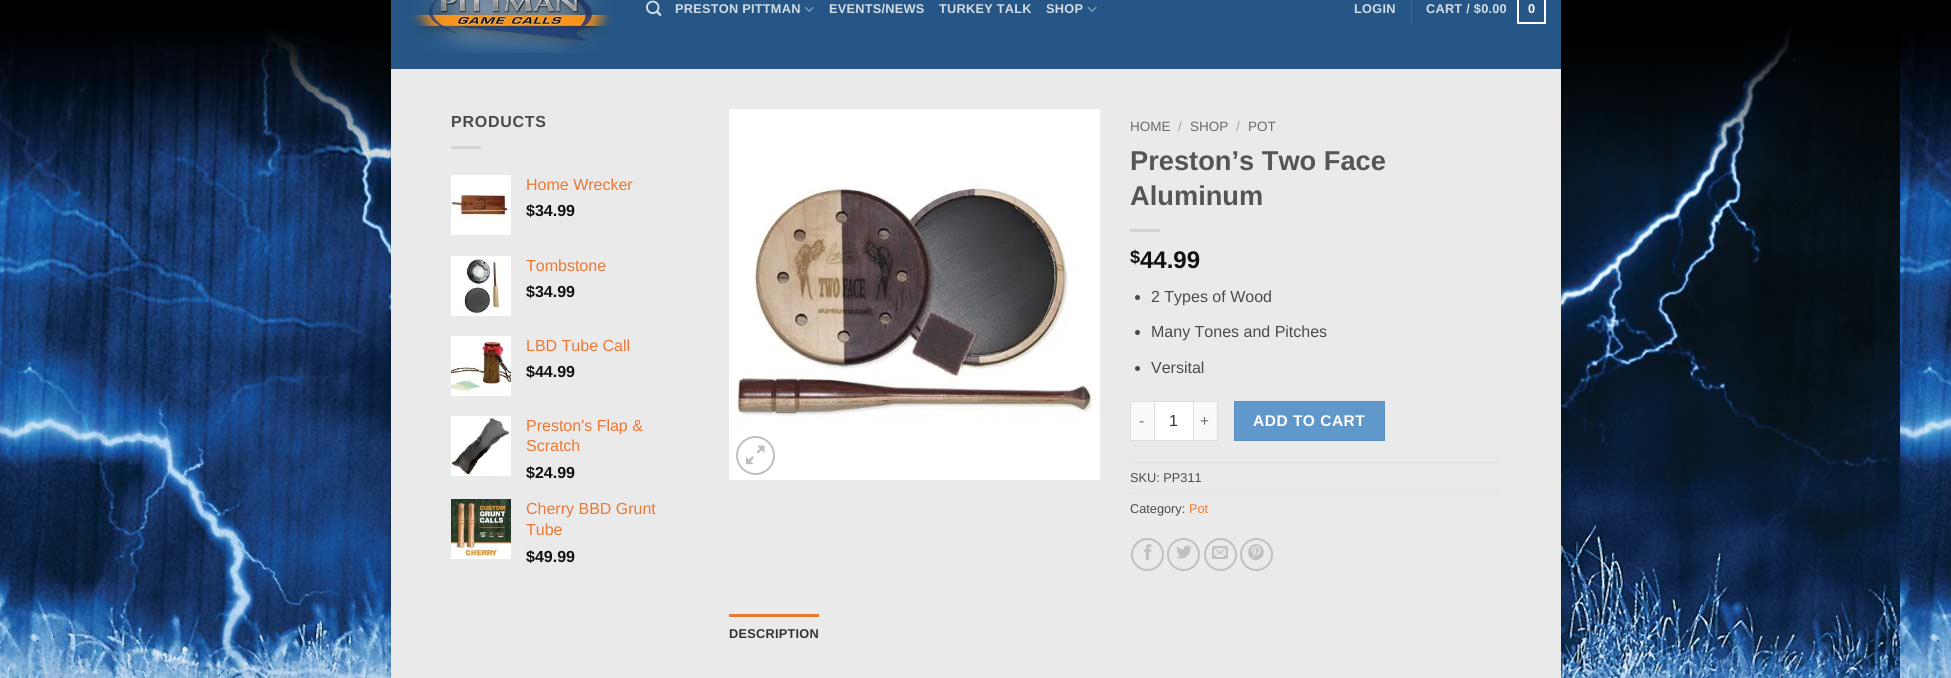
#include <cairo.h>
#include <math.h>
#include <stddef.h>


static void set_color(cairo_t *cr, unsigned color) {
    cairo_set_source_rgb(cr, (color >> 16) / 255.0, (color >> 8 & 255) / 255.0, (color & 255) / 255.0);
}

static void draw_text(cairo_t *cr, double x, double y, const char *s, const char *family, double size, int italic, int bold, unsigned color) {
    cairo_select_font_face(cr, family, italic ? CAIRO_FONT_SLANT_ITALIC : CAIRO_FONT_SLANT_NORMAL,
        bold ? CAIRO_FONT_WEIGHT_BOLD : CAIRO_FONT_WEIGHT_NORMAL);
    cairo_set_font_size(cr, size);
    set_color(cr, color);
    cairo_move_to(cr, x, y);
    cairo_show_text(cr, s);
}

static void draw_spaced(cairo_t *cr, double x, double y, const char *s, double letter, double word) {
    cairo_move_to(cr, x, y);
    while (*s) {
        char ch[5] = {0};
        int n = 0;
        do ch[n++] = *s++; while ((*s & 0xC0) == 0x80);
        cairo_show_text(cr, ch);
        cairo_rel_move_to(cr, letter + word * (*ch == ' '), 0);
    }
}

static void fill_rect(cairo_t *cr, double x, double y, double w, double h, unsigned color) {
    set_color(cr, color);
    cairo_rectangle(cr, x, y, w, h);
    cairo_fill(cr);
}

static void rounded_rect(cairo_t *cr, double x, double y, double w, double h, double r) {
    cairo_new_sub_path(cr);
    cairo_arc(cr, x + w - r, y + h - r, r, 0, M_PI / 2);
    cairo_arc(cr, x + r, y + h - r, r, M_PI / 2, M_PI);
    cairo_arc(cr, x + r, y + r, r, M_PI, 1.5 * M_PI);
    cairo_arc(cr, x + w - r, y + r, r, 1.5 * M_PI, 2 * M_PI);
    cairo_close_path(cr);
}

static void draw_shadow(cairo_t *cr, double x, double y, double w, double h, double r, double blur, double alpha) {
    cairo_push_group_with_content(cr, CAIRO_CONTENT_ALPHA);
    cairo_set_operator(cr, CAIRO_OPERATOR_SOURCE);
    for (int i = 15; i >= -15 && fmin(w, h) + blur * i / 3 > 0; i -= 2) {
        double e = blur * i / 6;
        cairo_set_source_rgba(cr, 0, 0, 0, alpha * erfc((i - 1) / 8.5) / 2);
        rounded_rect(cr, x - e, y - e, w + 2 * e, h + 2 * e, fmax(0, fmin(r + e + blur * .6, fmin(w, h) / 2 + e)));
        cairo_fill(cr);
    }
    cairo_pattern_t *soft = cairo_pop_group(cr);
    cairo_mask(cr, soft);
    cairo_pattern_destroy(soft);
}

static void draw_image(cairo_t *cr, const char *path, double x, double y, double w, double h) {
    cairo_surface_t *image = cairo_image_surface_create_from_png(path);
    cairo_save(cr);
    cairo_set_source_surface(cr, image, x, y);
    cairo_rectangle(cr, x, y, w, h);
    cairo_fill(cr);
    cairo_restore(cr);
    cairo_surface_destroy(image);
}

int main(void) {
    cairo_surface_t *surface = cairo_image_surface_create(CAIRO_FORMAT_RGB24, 1951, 678);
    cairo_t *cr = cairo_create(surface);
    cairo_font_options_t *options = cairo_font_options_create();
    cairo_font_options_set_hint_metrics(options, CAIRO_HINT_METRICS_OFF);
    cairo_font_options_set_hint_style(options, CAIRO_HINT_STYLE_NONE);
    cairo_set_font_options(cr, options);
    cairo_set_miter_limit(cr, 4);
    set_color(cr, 0xFFFFFF);
    cairo_paint(cr);
    draw_image(cr, "assets/img1.png", 0, 0, 1951, 678);
    set_color(cr, 0x000000);
    draw_shadow(cr, 391, -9, 1170, 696, 0, 3, 0.23);
    fill_rect(cr, 391, 69, 1170, 609, 0xEAEAEA);
    fill_rect(cr, 391, 0, 1170, 69, 0x255685);
    draw_image(cr, "assets/img2.png", 408, 0, 206, 53);
    draw_image(cr, "assets/img3.png", 646, 0, 16, 16);
    cairo_select_font_face(cr, "Liberation Sans", CAIRO_FONT_SLANT_NORMAL, CAIRO_FONT_WEIGHT_BOLD);
    cairo_set_font_size(cr, 12.75);
    set_color(cr, 0xD3DDE7);
    draw_spaced(cr, 675, 13, "PRESTON PITTMAN", 0.25, 0);
    draw_image(cr, "assets/img4.png", 804, 6, 10, 6);
    draw_spaced(cr, 829, 13, "EVENTS/NEWS", 0.25, 0);
    draw_spaced(cr, 939, 13, "TURKEY TALK", 0.25, 0);
    draw_spaced(cr, 1046, 13, "SHOP", 0.25, 0);
    draw_image(cr, "assets/img4.png", 1087, 6, 10, 6);
    draw_spaced(cr, 1354, 13, "LOGIN", 0.25, 0);
    fill_rect(cr, 1411, 0, 1, 24, 0x3B6791);
    set_color(cr, 0xD3DDE7);
    draw_spaced(cr, 1426, 13, "CART / $0.00", 0.25, 0);
    cairo_rectangle(cr, 1518, -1, 27, 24);
    set_color(cr, 0xFFFFFF);
    cairo_stroke(cr);
    draw_spaced(cr, 1528, 13, "0", 0.25, 0);
    cairo_set_font_size(cr, 16);
    set_color(cr, 0x4A4A4A);
    draw_spaced(cr, 451, 127, "PRODUCTS", 0.75, 0);
    fill_rect(cr, 451, 146, 30, 3, 0xD3D3D3);
    draw_image(cr, "assets/img5.png", 451, 175, 60, 60);
    draw_text(cr, 526, 190, "Home Wrecker", "Liberation Sans", 16, 0, 0, 0xEA7835);
    draw_text(cr, 526, 216, "$34.99", "Liberation Sans", 16, 0, 1, 0x111111);
    draw_image(cr, "assets/img6.png", 451, 256, 60, 60);
    draw_text(cr, 526, 271, "Tombstone", "Liberation Sans", 16, 0, 0, 0xEA7835);
    draw_text(cr, 526, 297, "$34.99", "Liberation Sans", 16, 0, 1, 0x111111);
    draw_image(cr, "assets/img7.png", 451, 336, 60, 60);
    draw_text(cr, 526, 351, "LBD Tube Call", "Liberation Sans", 16, 0, 0, 0xEA7835);
    draw_text(cr, 526, 377, "$44.99", "Liberation Sans", 16, 0, 1, 0x111111);
    draw_image(cr, "assets/img8.png", 451, 416, 60, 60);
    draw_text(cr, 526, 431, "Preston's Flap &", "Liberation Sans", 16, 0, 0, 0xEA7835);
    draw_text(cr, 526, 451, "Scratch", "Liberation Sans", 16, 0, 0, 0xEA7835);
    draw_text(cr, 526, 478, "$24.99", "Liberation Sans", 16, 0, 1, 0x111111);
    draw_image(cr, "assets/img9.png", 451, 499, 60, 60);
    draw_text(cr, 526, 514, "Cherry BBD Grunt", "Liberation Sans", 16, 0, 0, 0xEA7835);
    draw_text(cr, 526, 535, "Tube", "Liberation Sans", 16, 0, 0, 0xEA7835);
    draw_text(cr, 526, 562, "$49.99", "Liberation Sans", 16, 0, 1, 0x111111);
    draw_image(cr, "assets/img10.png", 729, 109, 371, 371);
    cairo_arc(cr, 755.5, 455.5, 18.5, 0, 2 * M_PI);
    set_color(cr, 0xC0C0C0);
    cairo_stroke(cr);
    draw_image(cr, "assets/img11.png", 746, 445, 19, 20);
    draw_text(cr, 1130, 131, "HOME", "Liberation Sans", 13.5, 0, 0, 0x6A6A6A);
    draw_text(cr, 1178, 131, "/", "Liberation Sans", 13.5, 0, 0, 0xA4A4A4);
    draw_text(cr, 1190, 131, "SHOP", "Liberation Sans", 13.5, 0, 0, 0x6A6A6A);
    draw_text(cr, 1236, 131, "/", "Liberation Sans", 13.5, 0, 0, 0xA4A4A4);
    draw_text(cr, 1248, 131, "POT", "Liberation Sans", 13.5, 0, 0, 0x6A6A6A);
    draw_text(cr, 1130, 170, "Preston’s Two Face", "Liberation Sans", 27.25, 0, 1, 0x555555);
    draw_text(cr, 1130, 205, "Aluminum", "Liberation Sans", 27.25, 0, 1, 0x555555);
    fill_rect(cr, 1130, 229, 30, 3, 0xD3D3D3);
    draw_text(cr, 1130, 263, "$", "Liberation Sans", 18, 0, 1, 0x111111);
    draw_text(cr, 1140, 268, "44.99", "Liberation Sans", 24, 0, 1, 0x111111);
    set_color(cr, 0x4A4A4A);
    cairo_new_path(cr);
    cairo_arc(cr, 1137.5, 297.5, 2.5, 0, 2 * M_PI);
    cairo_fill(cr);
    draw_text(cr, 1151, 302, "2 Types of Wood", "Liberation Sans", 16, 0, 0, 0x4A4A4A);
    cairo_new_path(cr);
    cairo_arc(cr, 1137.5, 332.5, 2.5, 0, 2 * M_PI);
    cairo_fill(cr);
    draw_text(cr, 1151, 337, "Many Tones and Pitches", "Liberation Sans", 16, 0, 0, 0x4A4A4A);
    cairo_new_path(cr);
    cairo_arc(cr, 1137.5, 368.5, 2.5, 0, 2 * M_PI);
    cairo_fill(cr);
    draw_text(cr, 1151, 373, "Versital", "Liberation Sans", 16, 0, 0, 0x4A4A4A);
    fill_rect(cr, 1131, 402, 23, 38, 0xF9F9F9);
    fill_rect(cr, 1130, 401, 24, 1, 0xDDDDDD);
    fill_rect(cr, 1130, 440, 24, 1, 0xDDDDDD);
    fill_rect(cr, 1130, 401, 1, 40, 0xDDDDDD);
    cairo_set_font_size(cr, 15.5);
    set_color(cr, 0x6A6A6A);
    draw_spaced(cr, 1139, 426, "-", 0.5, 0);
    set_color(cr, 0xFFFFFF);
    cairo_rectangle(cr, 1154.5, 401.5, 39, 39);
    cairo_fill_preserve(cr);
    set_color(cr, 0xDDDDDD);
    cairo_set_line_width(cr, 1);
    cairo_stroke(cr);
    draw_text(cr, 1169, 426, "1", "Liberation Sans", 16, 0, 0, 0x333333);
    fill_rect(cr, 1194, 402, 23, 38, 0xF9F9F9);
    fill_rect(cr, 1194, 401, 24, 1, 0xDDDDDD);
    fill_rect(cr, 1217, 401, 1, 40, 0xDDDDDD);
    fill_rect(cr, 1194, 440, 24, 1, 0xDDDDDD);
    cairo_set_font_size(cr, 15.5);
    set_color(cr, 0x6A6A6A);
    draw_spaced(cr, 1200, 426, "+", 0.5, 0);
    set_color(cr, 0x6198CB);
    cairo_rectangle(cr, 1234.5, 401.5, 150, 39);
    cairo_fill_preserve(cr);
    set_color(cr, 0x5C90C1);
    cairo_stroke(cr);
    cairo_select_font_face(cr, "Liberation Sans", CAIRO_FONT_SLANT_NORMAL, CAIRO_FONT_WEIGHT_BOLD);
    set_color(cr, 0xFFFFFF);
    draw_spaced(cr, 1253, 426, "ADD TO CART", 0.5, 0);
    cairo_new_path(cr);
    cairo_move_to(cr, 1130, 462.5);
    cairo_line_to(cr, 1501, 462.5);
    set_color(cr, 0xDDDDDD);
    cairo_set_dash(cr, (double[]){1, 1}, 2, 0);
    cairo_stroke(cr);
    draw_text(cr, 1130, 482, "SKU: PP311", "Liberation Sans", 12.75, 0, 0, 0x4A4A4A);
    cairo_new_path(cr);
    cairo_move_to(cr, 1130, 493.5);
    cairo_line_to(cr, 1501, 493.5);
    set_color(cr, 0xDDDDDD);
    cairo_stroke(cr);
    draw_text(cr, 1130, 513, "Category:", "Liberation Sans", 12.75, 0, 0, 0x4A4A4A);
    draw_text(cr, 1189, 513, "Pot", "Liberation Sans", 12.75, 0, 0, 0xEA7835);
    cairo_new_path(cr);
    cairo_arc(cr, 1147.5, 554.5, 15.5, 0, 2 * M_PI);
    set_color(cr, 0xC0C0C0);
    cairo_set_line_width(cr, 2);
    cairo_set_dash(cr, NULL, 0, 0);
    cairo_stroke(cr);
    draw_image(cr, "assets/img12.png", 1144, 544, 8, 16);
    cairo_arc(cr, 1183.5, 554.5, 15.5, 0, 2 * M_PI);
    cairo_stroke(cr);
    draw_image(cr, "assets/img13.png", 1176, 545, 16, 14);
    cairo_arc(cr, 1220.5, 554.5, 15.5, 0, 2 * M_PI);
    cairo_stroke(cr);
    draw_image(cr, "assets/img14.png", 1212, 546, 16, 13);
    cairo_arc(cr, 1256.5, 554.5, 15.5, 0, 2 * M_PI);
    cairo_stroke(cr);
    draw_image(cr, "assets/img15.png", 1248, 544, 16, 16);
    fill_rect(cr, 729, 614, 90, 3, 0xEA7835);
    cairo_select_font_face(cr, "Liberation Sans", CAIRO_FONT_SLANT_NORMAL, CAIRO_FONT_WEIGHT_BOLD);
    set_color(cr, 0x333333);
    draw_spaced(cr, 729, 638, "DESCRIPTION", 0.25, 0);
    cairo_surface_write_to_png(surface, "output.png");
    cairo_font_options_destroy(options);
    cairo_destroy(cr);
    cairo_surface_destroy(surface);
    return 0;
}
